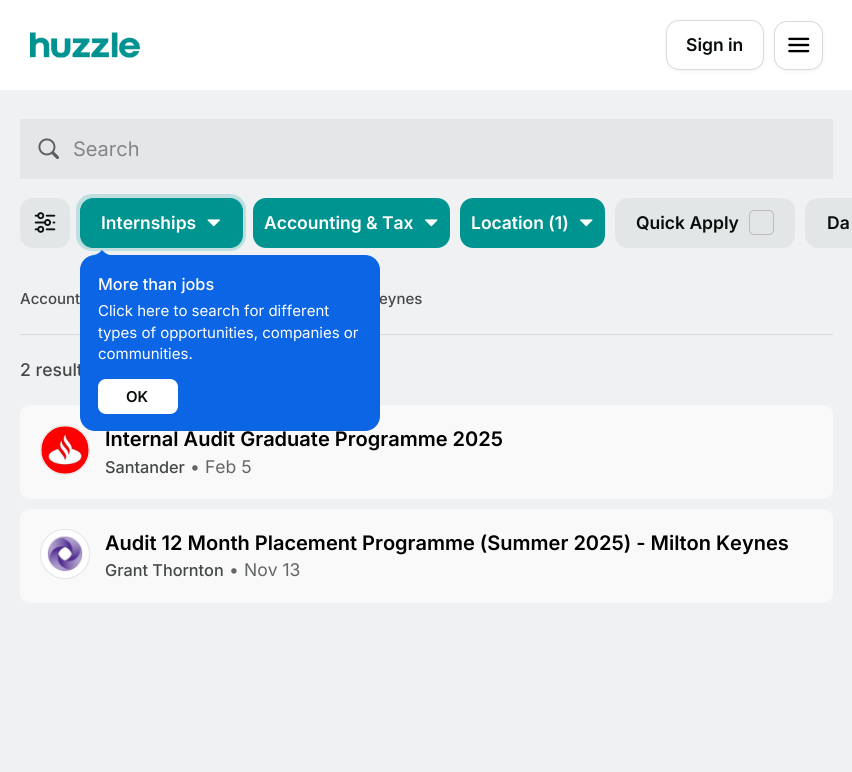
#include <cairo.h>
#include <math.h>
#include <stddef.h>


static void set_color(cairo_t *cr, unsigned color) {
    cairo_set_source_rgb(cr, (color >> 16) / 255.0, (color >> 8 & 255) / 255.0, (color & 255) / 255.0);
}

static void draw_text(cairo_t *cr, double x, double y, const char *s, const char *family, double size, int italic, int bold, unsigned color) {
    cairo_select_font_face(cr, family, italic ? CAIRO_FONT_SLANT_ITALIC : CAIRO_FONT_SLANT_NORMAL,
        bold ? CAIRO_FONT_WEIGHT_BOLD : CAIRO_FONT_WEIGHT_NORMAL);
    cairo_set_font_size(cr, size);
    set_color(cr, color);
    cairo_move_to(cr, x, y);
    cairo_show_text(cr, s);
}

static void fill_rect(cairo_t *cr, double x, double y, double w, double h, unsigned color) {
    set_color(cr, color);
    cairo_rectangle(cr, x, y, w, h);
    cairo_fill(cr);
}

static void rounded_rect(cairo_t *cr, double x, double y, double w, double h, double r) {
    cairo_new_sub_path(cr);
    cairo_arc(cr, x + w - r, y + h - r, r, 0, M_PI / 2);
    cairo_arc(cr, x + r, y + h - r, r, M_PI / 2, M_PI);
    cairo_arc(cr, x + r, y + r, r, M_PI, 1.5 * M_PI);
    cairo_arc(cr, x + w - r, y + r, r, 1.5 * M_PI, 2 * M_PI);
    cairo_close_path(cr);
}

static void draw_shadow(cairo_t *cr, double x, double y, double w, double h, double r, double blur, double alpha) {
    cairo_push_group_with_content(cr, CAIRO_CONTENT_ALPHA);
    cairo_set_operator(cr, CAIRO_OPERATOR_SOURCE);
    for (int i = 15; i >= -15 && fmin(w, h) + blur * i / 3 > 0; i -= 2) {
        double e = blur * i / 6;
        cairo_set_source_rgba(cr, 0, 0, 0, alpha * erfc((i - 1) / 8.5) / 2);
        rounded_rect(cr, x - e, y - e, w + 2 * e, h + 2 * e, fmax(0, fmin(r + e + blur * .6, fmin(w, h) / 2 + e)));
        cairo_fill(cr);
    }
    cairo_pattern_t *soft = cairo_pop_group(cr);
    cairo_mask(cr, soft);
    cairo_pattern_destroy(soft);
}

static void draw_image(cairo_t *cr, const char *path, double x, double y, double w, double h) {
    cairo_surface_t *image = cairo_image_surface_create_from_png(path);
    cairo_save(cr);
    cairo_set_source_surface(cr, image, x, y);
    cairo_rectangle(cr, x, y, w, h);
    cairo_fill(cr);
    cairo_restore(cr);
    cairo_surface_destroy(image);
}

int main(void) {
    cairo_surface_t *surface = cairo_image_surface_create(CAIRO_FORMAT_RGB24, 852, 772);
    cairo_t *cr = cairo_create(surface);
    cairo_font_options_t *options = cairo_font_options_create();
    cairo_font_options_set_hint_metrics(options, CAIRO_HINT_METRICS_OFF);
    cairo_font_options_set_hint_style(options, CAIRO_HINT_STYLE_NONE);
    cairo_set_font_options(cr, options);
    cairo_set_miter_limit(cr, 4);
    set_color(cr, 0xFFFFFF);
    cairo_paint(cr);
    draw_image(cr, "assets/img1.png", 30, 32, 110, 26);
    set_color(cr, 0x080C0B);
    draw_shadow(cr, 666, 21, 98, 50, 13, 2, 0.05);
    set_color(cr, 0xFFFFFF);
    rounded_rect(cr, 666.5, 20.5, 97, 49, 12.5);
    cairo_fill_preserve(cr);
    set_color(cr, 0xDADADA);
    cairo_set_line_width(cr, 1);
    cairo_stroke(cr);
    draw_text(cr, 686, 51, "Sign in", "Inter SemiBold", 17.5, 0, 0, 0x080C0B);
    set_color(cr, 0x080C0B);
    draw_shadow(cr, 774, 23, 49, 48, 13, 2, 0.05);
    set_color(cr, 0xFFFFFF);
    rounded_rect(cr, 774.5, 21.5, 48, 48, 12.5);
    cairo_fill_preserve(cr);
    set_color(cr, 0xDADADA);
    cairo_stroke(cr);
    draw_image(cr, "assets/img2.png", 788, 37, 22, 16);
    fill_rect(cr, 0, 90, 852, 682, 0xEFF1F3);
    cairo_set_source_rgba(cr, 0.031, 0.047, 0.043, 0.05);
    cairo_rectangle(cr, 20, 119, 813, 60);
    cairo_fill(cr);
    draw_image(cr, "assets/img3.png", 38, 138, 21, 21);
    draw_text(cr, 73, 156, "Search", "Inter", 20, 0, 0, 0x838686);
    set_color(cr, 0xE3E6E7);
    rounded_rect(cr, 20, 198, 50, 50, 13);
    cairo_fill(cr);
    draw_image(cr, "assets/img4.png", 34, 212, 22, 21);
    rounded_rect(cr, 78, 196, 166, 53, 14);
    set_color(cr, 0xBFDEDF);
    cairo_set_line_width(cr, 4);
    cairo_stroke(cr);
    set_color(cr, 0x009491);
    rounded_rect(cr, 80.5, 198.5, 162, 49, 12.5);
    cairo_fill_preserve(cr);
    cairo_set_line_width(cr, 1);
    cairo_stroke(cr);
    draw_text(cr, 101, 229, "Internships", "Inter SemiBold", 17.5, 0, 0, 0xFFFFFF);
    draw_image(cr, "assets/img5.png", 207, 219, 13, 8);
    fill_rect(cr, 20, 334, 813, 1, 0xD8DADC);
    draw_text(cr, 20, 376, "2 result", "Inter Medium", 17.5, 0, 0, 0x444847);
    cairo_set_source_rgba(cr, 1, 1, 1, 0.6);
    rounded_rect(cr, 20, 405, 813, 94, 10);
    cairo_fill(cr);
    cairo_arc(cr, 65, 450, 24.5, 0, 2 * M_PI);
    set_color(cr, 0xDDDFE1);
    cairo_stroke(cr);
    set_color(cr, 0xFFFFFF);
    cairo_arc(cr, 65, 450, 25, 0, 2 * M_PI);
    cairo_fill(cr);
    cairo_arc(cr, 65, 450, 24.5, 0, 2 * M_PI);
    cairo_set_source_rgba(cr, 0.031, 0.047, 0.043, 0.1);
    cairo_stroke(cr);
    draw_image(cr, "assets/img8.png", 41, 426, 48, 48);
    draw_text(cr, 105, 446, "Internal Audit Graduate Programme 2025", "Inter SemiBold", 20, 0, 0, 0x000000);
    set_color(cr, 0x0C65E4);
    rounded_rect(cr, 80, 255, 300, 176, 15);
    cairo_fill(cr);
    draw_image(cr, "assets/img6.png", 93, 250, 17, 5);
    draw_text(cr, 98, 290, "More than jobs", "Inter Medium", 16.25, 0, 0, 0xFFFFFF);
    draw_text(cr, 98, 316, "Click here to search for different", "Inter", 15, 0, 0, 0xFFFFFF);
    draw_text(cr, 98, 338, "types of opportunities, companies or", "Inter", 15, 0, 0, 0xFFFFFF);
    draw_text(cr, 98, 359, "communities.", "Inter", 15, 0, 0, 0xFFFFFF);
    rounded_rect(cr, 98, 379, 80, 35, 8);
    cairo_fill(cr);
    draw_text(cr, 126, 402, "OK", "Inter SemiBold", 15, 0, 0, 0x080C0B);
    set_color(cr, 0x009491);
    rounded_rect(cr, 460, 198, 145, 50, 13);
    cairo_fill(cr);
    draw_text(cr, 471, 229, "Location (1)", "Inter SemiBold", 17.5, 0, 0, 0xFFFFFF);
    draw_image(cr, "assets/img7.png", 580, 219, 13, 8);
    set_color(cr, 0x009491);
    rounded_rect(cr, 253, 198, 197, 50, 13);
    cairo_fill(cr);
    draw_text(cr, 264, 229, "Accounting & Tax", "Inter SemiBold", 17.5, 0, 0, 0xFFFFFF);
    draw_image(cr, "assets/img7.png", 425, 219, 13, 8);
    set_color(cr, 0xE3E6E7);
    rounded_rect(cr, 615, 198, 180, 50, 13);
    cairo_fill(cr);
    draw_text(cr, 636, 229, "Quick Apply", "Inter SemiBold", 17.5, 0, 0, 0x080C0B);
    rounded_rect(cr, 749.5, 210.5, 24, 24, 4.5);
    set_color(cr, 0xBDBDBD);
    cairo_stroke(cr);
    set_color(cr, 0xE3E6E7);
    cairo_new_path(cr);
    cairo_move_to(cr, 818, 198);
    cairo_line_to(cr, 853, 198);
    cairo_line_to(cr, 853, 248);
    cairo_line_to(cr, 818, 248);
    cairo_curve_to(cr, 811, 248, 805, 242, 805, 235);
    cairo_line_to(cr, 805, 211);
    cairo_curve_to(cr, 805, 204, 811, 198, 818, 198);
    cairo_close_path(cr);
    cairo_fill(cr);
    draw_text(cr, 827, 229, "Da", "Inter SemiBold", 17.5, 0, 0, 0x080C0B);
    draw_text(cr, 20, 304, "Account", "Inter Medium", 15, 0, 0, 0x444847);
    draw_text(cr, 379, 304, "eynes", "Inter Medium", 15, 0, 0, 0x444847);
    draw_text(cr, 105, 473, "Santander", "Inter Medium", 16.25, 0, 0, 0x444847);
    draw_text(cr, 190, 473, "•", "Inter", 17.5, 0, 0, 0x636666);
    draw_text(cr, 205, 473, "Feb 5", "Inter", 17.5, 0, 0, 0x636666);
    cairo_set_source_rgba(cr, 1, 1, 1, 0.6);
    rounded_rect(cr, 20, 509, 813, 94, 10);
    cairo_fill(cr);
    cairo_arc(cr, 65, 554, 24.5, 0, 2 * M_PI);
    set_color(cr, 0xDDDFE1);
    cairo_stroke(cr);
    set_color(cr, 0xFFFFFF);
    cairo_arc(cr, 65, 554, 25, 0, 2 * M_PI);
    cairo_fill(cr);
    cairo_arc(cr, 65, 554, 24.5, 0, 2 * M_PI);
    cairo_set_source_rgba(cr, 0.031, 0.047, 0.043, 0.1);
    cairo_stroke(cr);
    draw_image(cr, "assets/img9.png", 44, 530, 42, 42);
    draw_text(cr, 105, 550, "Audit 12 Month Placement Programme (Summer 2025) - Milton Keynes", "Inter SemiBold", 20, 0, 0, 0x000000);
    draw_text(cr, 105, 576, "Grant Thornton", "Inter Medium", 16.25, 0, 0, 0x444847);
    draw_text(cr, 229, 576, "•", "Inter", 17.5, 0, 0, 0x636666);
    draw_text(cr, 244, 576, "Nov 13", "Inter", 17.5, 0, 0, 0x636666);
    cairo_surface_write_to_png(surface, "output.png");
    cairo_font_options_destroy(options);
    cairo_destroy(cr);
    cairo_surface_destroy(surface);
    return 0;
}
